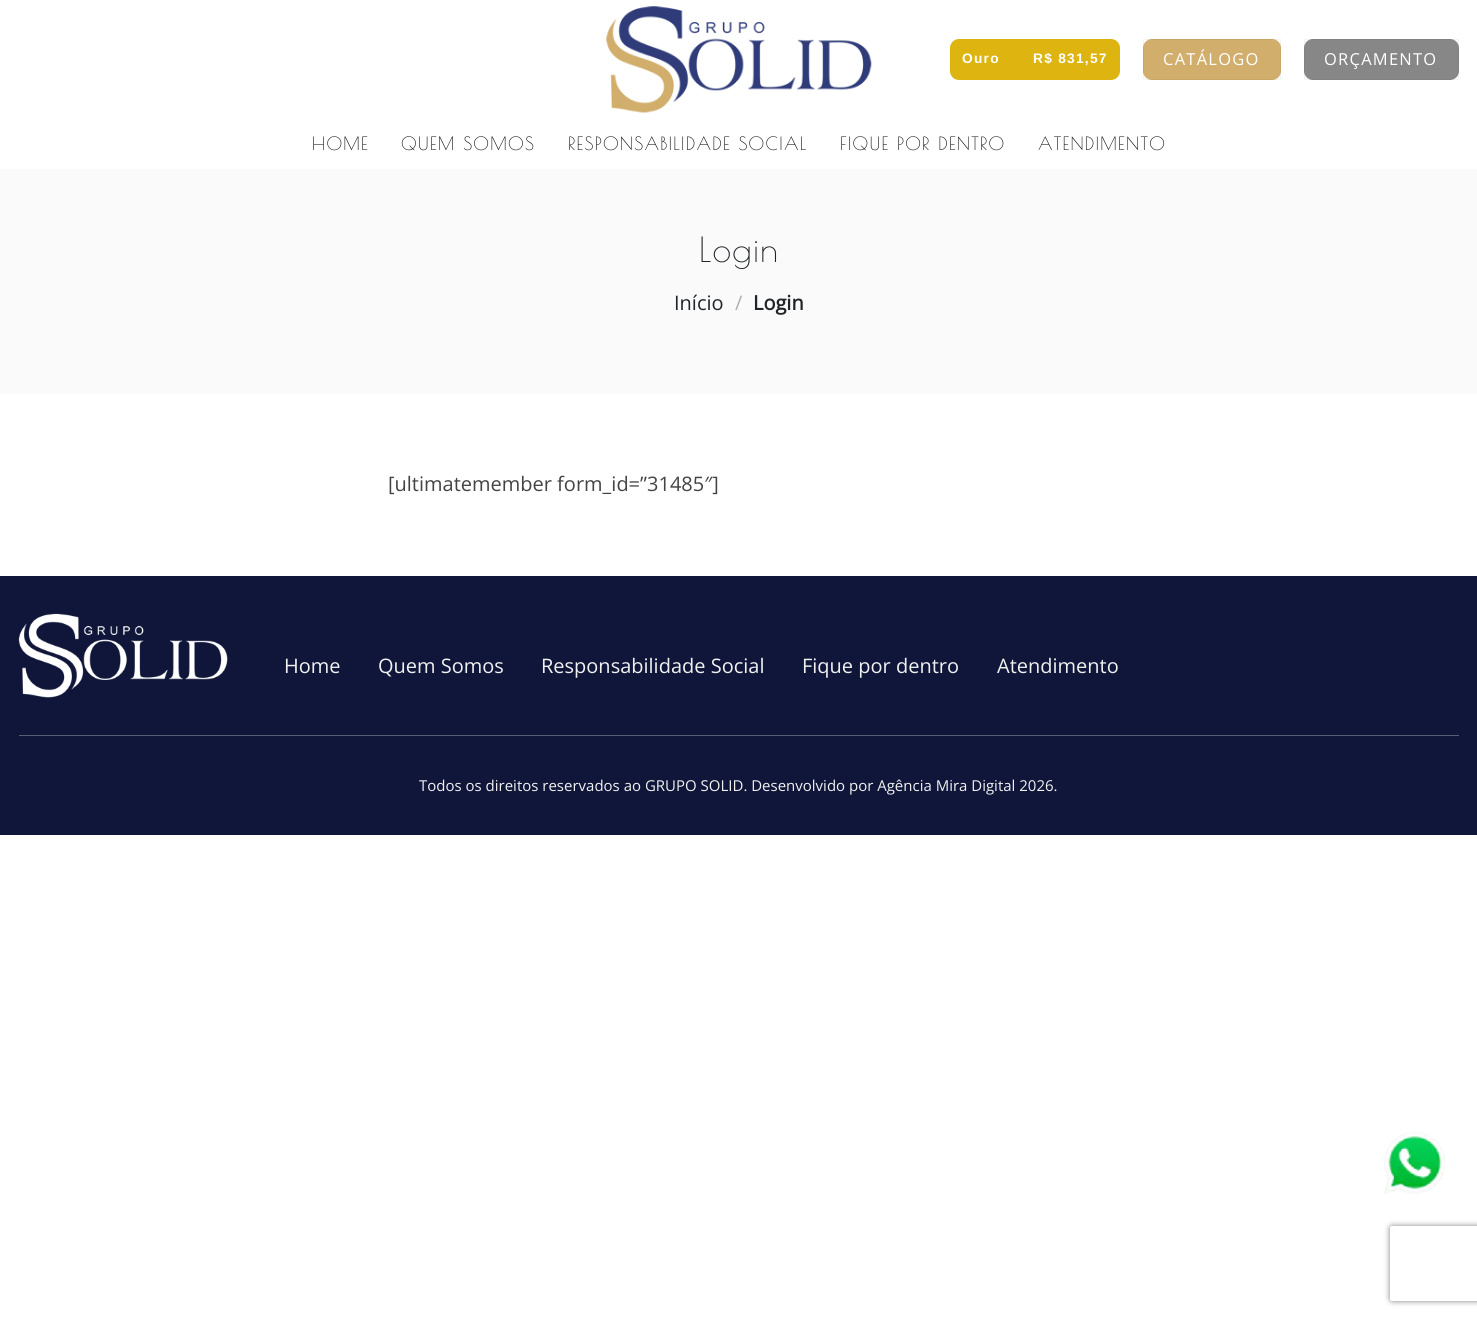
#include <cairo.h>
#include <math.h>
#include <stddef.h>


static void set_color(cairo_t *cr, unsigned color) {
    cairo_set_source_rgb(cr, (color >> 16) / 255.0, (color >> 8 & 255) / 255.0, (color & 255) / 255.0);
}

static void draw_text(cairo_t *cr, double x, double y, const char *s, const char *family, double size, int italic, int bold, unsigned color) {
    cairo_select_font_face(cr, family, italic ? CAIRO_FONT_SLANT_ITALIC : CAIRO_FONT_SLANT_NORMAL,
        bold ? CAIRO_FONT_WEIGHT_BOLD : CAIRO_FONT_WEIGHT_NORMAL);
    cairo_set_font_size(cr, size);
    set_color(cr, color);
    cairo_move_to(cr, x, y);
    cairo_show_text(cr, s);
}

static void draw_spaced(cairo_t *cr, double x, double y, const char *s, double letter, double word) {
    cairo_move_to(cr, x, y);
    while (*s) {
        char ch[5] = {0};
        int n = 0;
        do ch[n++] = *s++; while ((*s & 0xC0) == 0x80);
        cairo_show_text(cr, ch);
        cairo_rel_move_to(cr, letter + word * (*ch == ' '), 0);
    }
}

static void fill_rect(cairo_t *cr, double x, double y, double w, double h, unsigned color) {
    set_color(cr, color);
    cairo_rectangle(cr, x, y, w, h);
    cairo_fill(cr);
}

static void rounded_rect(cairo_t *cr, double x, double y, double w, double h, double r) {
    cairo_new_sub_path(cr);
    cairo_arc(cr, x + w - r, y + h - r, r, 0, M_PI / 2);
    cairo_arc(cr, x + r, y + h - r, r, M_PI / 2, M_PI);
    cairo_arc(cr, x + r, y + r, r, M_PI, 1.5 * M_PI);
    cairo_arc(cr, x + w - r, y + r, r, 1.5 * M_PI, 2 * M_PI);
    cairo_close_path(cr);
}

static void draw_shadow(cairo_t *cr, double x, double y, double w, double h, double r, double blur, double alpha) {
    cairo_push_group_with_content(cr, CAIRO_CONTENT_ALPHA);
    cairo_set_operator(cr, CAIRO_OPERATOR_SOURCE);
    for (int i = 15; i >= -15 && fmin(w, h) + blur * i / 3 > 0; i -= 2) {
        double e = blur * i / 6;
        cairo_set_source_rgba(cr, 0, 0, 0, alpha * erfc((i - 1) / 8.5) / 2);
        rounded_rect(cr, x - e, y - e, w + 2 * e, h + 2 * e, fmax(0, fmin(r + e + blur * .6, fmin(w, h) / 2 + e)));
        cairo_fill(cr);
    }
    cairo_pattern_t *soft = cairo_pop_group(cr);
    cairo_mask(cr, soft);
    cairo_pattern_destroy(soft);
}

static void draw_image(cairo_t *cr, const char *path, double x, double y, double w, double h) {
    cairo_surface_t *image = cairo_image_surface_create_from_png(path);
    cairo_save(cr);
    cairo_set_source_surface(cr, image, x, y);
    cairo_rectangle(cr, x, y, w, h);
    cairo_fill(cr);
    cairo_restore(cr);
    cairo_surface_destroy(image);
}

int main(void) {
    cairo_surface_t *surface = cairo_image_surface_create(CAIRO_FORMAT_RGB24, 1477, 1318);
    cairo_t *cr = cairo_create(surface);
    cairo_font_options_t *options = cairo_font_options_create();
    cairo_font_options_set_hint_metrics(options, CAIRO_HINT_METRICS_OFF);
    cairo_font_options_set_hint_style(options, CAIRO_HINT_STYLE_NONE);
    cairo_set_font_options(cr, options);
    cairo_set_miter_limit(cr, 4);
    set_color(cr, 0xFFFFFF);
    cairo_paint(cr);
    draw_image(cr, "assets/img1.png", 606, 6, 266, 107);
    set_color(cr, 0xDEB510);
    rounded_rect(cr, 950, 39, 170, 41, 9);
    cairo_fill(cr);
    cairo_select_font_face(cr, "Liberation Sans", CAIRO_FONT_SLANT_NORMAL, CAIRO_FONT_WEIGHT_BOLD);
    cairo_set_font_size(cr, 13.75);
    set_color(cr, 0xFFFFFF);
    draw_spaced(cr, 962, 63, "Ouro", 1.25, 0);
    draw_spaced(cr, 1033, 63, "R$ 831,57", 1.25, 0);
    set_color(cr, 0xD2AE6D);
    rounded_rect(cr, 1143, 39, 138, 41, 9);
    cairo_fill(cr);
    cairo_rectangle(cr, 1143.5, 39.5, 137, 40);
    cairo_set_source_rgba(cr, 0, 0, 0, 0.05);
    cairo_set_line_width(cr, 1);
    cairo_stroke(cr);
    cairo_select_font_face(cr, "Open Sans", CAIRO_FONT_SLANT_NORMAL, CAIRO_FONT_WEIGHT_NORMAL);
    cairo_set_font_size(cr, 16.5);
    set_color(cr, 0xFFFFFF);
    draw_spaced(cr, 1163, 65, "CATÁLOGO", 1.25, 0);
    set_color(cr, 0x878787);
    rounded_rect(cr, 1304, 39, 155, 41, 9);
    cairo_fill(cr);
    cairo_rectangle(cr, 1304.5, 39.5, 154, 40);
    cairo_set_source_rgba(cr, 0, 0, 0, 0.05);
    cairo_stroke(cr);
    set_color(cr, 0xFFFFFF);
    draw_spaced(cr, 1324, 65, "ORÇAMENTO", 1.25, 0);
    cairo_select_font_face(cr, "Poiret One", CAIRO_FONT_SLANT_NORMAL, CAIRO_FONT_WEIGHT_NORMAL);
    cairo_set_font_size(cr, 18);
    set_color(cr, 0x0A0A0A);
    draw_spaced(cr, 312, 150, "HOME", 1.25, 0);
    draw_spaced(cr, 401, 150, "QUEM SOMOS", 1.25, 0);
    draw_spaced(cr, 568, 150, "RESPONSABILIDADE SOCIAL", 1.25, 0);
    draw_spaced(cr, 840, 150, "FIQUE POR DENTRO", 1.25, 0);
    draw_spaced(cr, 1038, 150, "ATENDIMENTO", 1.25, 0);
    fill_rect(cr, 0, 169, 1477, 225, 0xFAFAFA);
    cairo_set_font_size(cr, 34);
    set_color(cr, 0x212529);
    draw_spaced(cr, 699, 262, "Login", 1.25, 0);
    draw_text(cr, 674, 310, "Início", "Open Sans", 20, 0, 0, 0x212529);
    draw_text(cr, 735, 310, "/", "Open Sans", 20, 0, 0, 0xAEAFB1);
    draw_text(cr, 753, 310, "Login", "Open Sans", 20, 0, 1, 0x212529);
    draw_text(cr, 388, 491, "[ultimatemember form_id=”31485″]", "Open Sans", 20, 0, 0, 0x444444);
    fill_rect(cr, 0, 576, 1477, 259, 0x101639);
    draw_image(cr, "assets/img2.png", 18, 613, 210, 85);
    draw_text(cr, 284, 673, "Home", "Open Sans", 20, 0, 0, 0xF1F1F1);
    draw_text(cr, 378, 673, "Quem Somos", "Open Sans", 20, 0, 0, 0xF1F1F1);
    draw_text(cr, 541, 673, "Responsabilidade Social", "Open Sans", 20, 0, 0, 0xF1F1F1);
    draw_text(cr, 802, 673, "Fique por dentro", "Open Sans", 20, 0, 0, 0xF1F1F1);
    draw_text(cr, 997, 673, "Atendimento", "Open Sans", 20, 0, 0, 0xF1F1F1);
    draw_image(cr, "assets/img3.png", 1384, 1131, 61, 63);
    fill_rect(cr, 19, 735, 1440, 1, 0x585C74);
    draw_text(cr, 419, 791, "Todos os direitos reservados ao GRUPO SOLID. Desenvolvido por Agência Mira Digital 2026.", "Open Sans", 15, 0, 0, 0xF1F1F1);
    cairo_save(cr);
    cairo_set_fill_rule(cr, CAIRO_FILL_RULE_EVEN_ODD);
    cairo_new_path(cr);
    cairo_move_to(cr, 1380, 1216);
    cairo_line_to(cr, 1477, 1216);
    cairo_line_to(cr, 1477, 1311);
    cairo_line_to(cr, 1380, 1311);
    cairo_close_path(cr);
    cairo_move_to(cr, 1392.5, 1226);
    cairo_line_to(cr, 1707.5, 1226);
    cairo_curve_to(cr, 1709, 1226, 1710, 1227, 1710, 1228.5);
    cairo_line_to(cr, 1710, 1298.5);
    cairo_curve_to(cr, 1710, 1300, 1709, 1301, 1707.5, 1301);
    cairo_line_to(cr, 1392.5, 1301);
    cairo_curve_to(cr, 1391, 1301, 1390, 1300, 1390, 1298.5);
    cairo_line_to(cr, 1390, 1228.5);
    cairo_curve_to(cr, 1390, 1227, 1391, 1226, 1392.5, 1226);
    cairo_close_path(cr);
    cairo_clip(cr);
    set_color(cr, 0x808080);
    draw_shadow(cr, 1390, 1226, 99, 75, 2.5, 3, 1);
    cairo_restore(cr);
    cairo_surface_write_to_png(surface, "output.png");
    cairo_font_options_destroy(options);
    cairo_destroy(cr);
    cairo_surface_destroy(surface);
    return 0;
}
